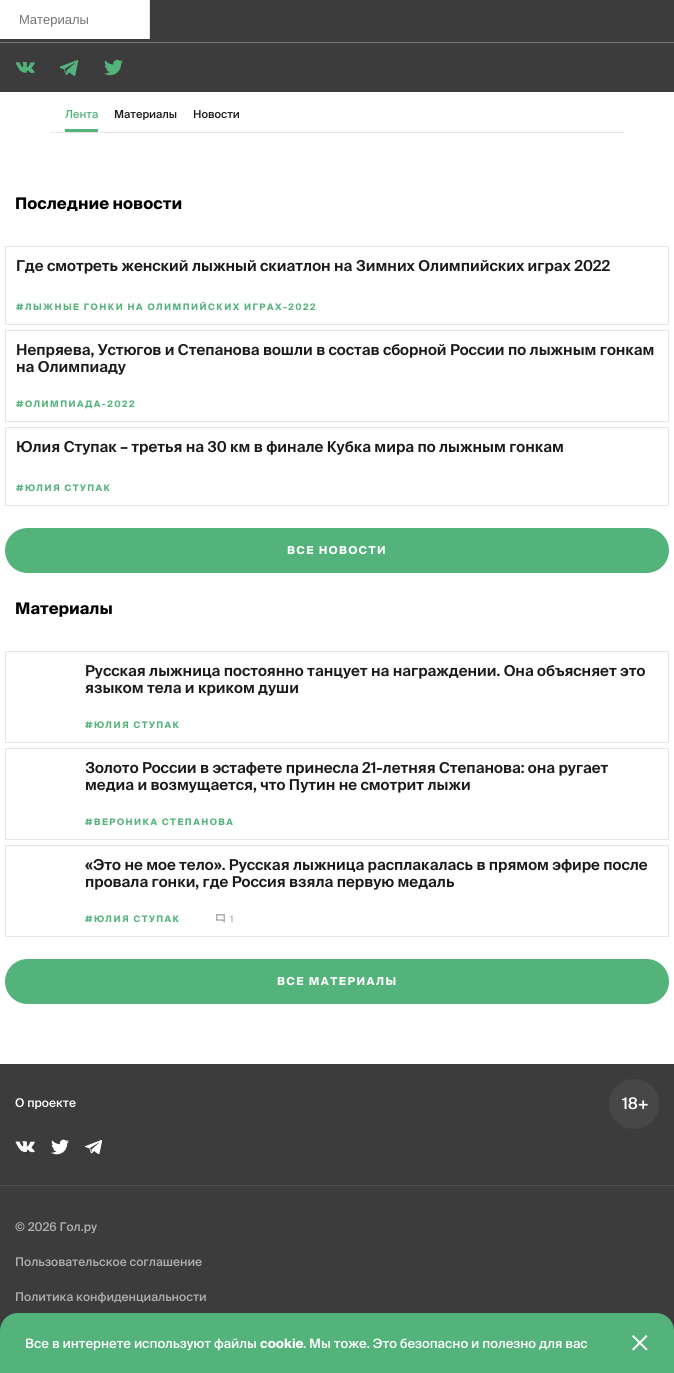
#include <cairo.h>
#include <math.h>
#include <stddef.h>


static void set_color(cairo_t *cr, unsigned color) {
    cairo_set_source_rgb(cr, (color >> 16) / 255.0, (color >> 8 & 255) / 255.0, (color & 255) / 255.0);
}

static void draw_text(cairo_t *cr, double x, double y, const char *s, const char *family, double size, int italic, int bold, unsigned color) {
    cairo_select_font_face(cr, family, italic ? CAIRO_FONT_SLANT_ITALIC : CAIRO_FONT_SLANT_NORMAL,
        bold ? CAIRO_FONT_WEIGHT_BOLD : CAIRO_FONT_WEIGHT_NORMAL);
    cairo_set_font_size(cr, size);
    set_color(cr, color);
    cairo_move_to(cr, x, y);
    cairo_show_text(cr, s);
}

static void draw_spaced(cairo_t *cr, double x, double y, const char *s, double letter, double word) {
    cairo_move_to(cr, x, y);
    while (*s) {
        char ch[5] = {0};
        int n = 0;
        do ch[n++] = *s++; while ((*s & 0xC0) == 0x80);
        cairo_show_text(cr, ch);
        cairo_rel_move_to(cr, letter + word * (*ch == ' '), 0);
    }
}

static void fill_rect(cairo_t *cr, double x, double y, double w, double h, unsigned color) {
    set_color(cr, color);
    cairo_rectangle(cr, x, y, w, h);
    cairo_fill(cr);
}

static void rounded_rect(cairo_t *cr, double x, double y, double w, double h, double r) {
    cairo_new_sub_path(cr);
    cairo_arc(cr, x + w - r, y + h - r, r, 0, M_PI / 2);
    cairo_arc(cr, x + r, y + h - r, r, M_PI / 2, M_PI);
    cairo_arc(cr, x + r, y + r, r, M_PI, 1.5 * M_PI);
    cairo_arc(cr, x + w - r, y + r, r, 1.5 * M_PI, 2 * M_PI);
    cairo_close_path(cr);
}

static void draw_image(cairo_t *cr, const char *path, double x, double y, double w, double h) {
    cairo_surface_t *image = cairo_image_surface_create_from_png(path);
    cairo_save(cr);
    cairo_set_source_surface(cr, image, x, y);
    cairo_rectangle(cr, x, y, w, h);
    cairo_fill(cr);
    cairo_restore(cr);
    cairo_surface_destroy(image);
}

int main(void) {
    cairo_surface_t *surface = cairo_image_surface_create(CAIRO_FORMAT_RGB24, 674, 1373);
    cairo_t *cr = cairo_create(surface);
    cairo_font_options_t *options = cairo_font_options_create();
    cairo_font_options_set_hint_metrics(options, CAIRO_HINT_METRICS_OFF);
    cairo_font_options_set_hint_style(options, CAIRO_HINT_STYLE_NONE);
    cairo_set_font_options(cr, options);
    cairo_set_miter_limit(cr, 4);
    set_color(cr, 0xFFFFFF);
    cairo_paint(cr);
    fill_rect(cr, 0, 0, 674, 92, 0x3C3C3C);
    fill_rect(cr, 0, 0, 149, 39, 0xFFFFFF);
    fill_rect(cr, 149, 0, 1, 39, 0xE5E5E5);
    draw_text(cr, 19, 24, "Материалы", "Liberation Sans", 13, 0, 0, 0x737373);
    fill_rect(cr, 0, 42, 674, 1, 0x777777);
    draw_image(cr, "assets/img1.png", 15, 62, 20, 11);
    draw_image(cr, "assets/img2.png", 60, 60, 19, 16);
    draw_image(cr, "assets/img3.png", 104, 59, 19, 17);
    fill_rect(cr, 50, 132, 574, 1, 0xE6E6E6);
    draw_text(cr, 65, 118, "Лента", "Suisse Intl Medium", 11, 0, 0, 0x54B27B);
    fill_rect(cr, 65, 129, 33, 3, 0x54B27B);
    draw_text(cr, 114, 118, "Материалы", "Suisse Intl Medium", 11, 0, 0, 0x1A1A1A);
    draw_text(cr, 193, 118, "Новости", "Suisse Intl Medium", 11, 0, 0, 0x1A1A1A);
    draw_text(cr, 15, 209, "Последние новости", "Suisse Intl", 16, 0, 1, 0x000000);
    cairo_rectangle(cr, 5.5, 246.5, 663, 78);
    set_color(cr, 0xE6E6E6);
    cairo_set_line_width(cr, 1);
    cairo_stroke(cr);
    draw_text(cr, 16, 271, "Где смотреть женский лыжный скиатлон на Зимних Олимпийских играх 2022", "Suisse Intl SemiBold", 15, 0, 0, 0x1A1A1A);
    cairo_select_font_face(cr, "Suisse Intl", CAIRO_FONT_SLANT_NORMAL, CAIRO_FONT_WEIGHT_BOLD);
    cairo_set_font_size(cr, 9);
    set_color(cr, 0x54B27B);
    draw_spaced(cr, 16, 310, "#ЛЫЖНЫЕ ГОНКИ НА ОЛИМПИЙСКИХ ИГРАХ-2022", 1.45, 0);
    cairo_rectangle(cr, 5.5, 330.5, 663, 91);
    set_color(cr, 0xE6E6E6);
    cairo_stroke(cr);
    draw_text(cr, 16, 355, "Непряева, Устюгов и Степанова вошли в состав сборной России по лыжным гонкам", "Suisse Intl SemiBold", 15, 0, 0, 0x1A1A1A);
    draw_text(cr, 16, 372, "на Олимпиаду", "Suisse Intl SemiBold", 15, 0, 0, 0x1A1A1A);
    cairo_select_font_face(cr, "Suisse Intl", CAIRO_FONT_SLANT_NORMAL, CAIRO_FONT_WEIGHT_BOLD);
    cairo_set_font_size(cr, 9);
    set_color(cr, 0x54B27B);
    draw_spaced(cr, 16, 407, "#ОЛИМПИАДА-2022", 1.45, 0);
    cairo_rectangle(cr, 5.5, 427.5, 663, 78);
    set_color(cr, 0xE6E6E6);
    cairo_stroke(cr);
    draw_text(cr, 16, 452, "Юлия Ступак – третья на 30 км в финале Кубка мира по лыжным гонкам", "Suisse Intl SemiBold", 15, 0, 0, 0x1A1A1A);
    cairo_select_font_face(cr, "Suisse Intl", CAIRO_FONT_SLANT_NORMAL, CAIRO_FONT_WEIGHT_BOLD);
    cairo_set_font_size(cr, 9);
    set_color(cr, 0x54B27B);
    draw_spaced(cr, 16, 491, "#ЮЛИЯ СТУПАК", 1.45, 0);
    rounded_rect(cr, 5, 528, 664, 45, 22.5);
    cairo_fill(cr);
    cairo_set_font_size(cr, 11);
    set_color(cr, 0xFFFFFF);
    draw_spaced(cr, 287, 554, "ВСЕ НОВОСТИ", 1.45, 0);
    draw_text(cr, 15, 614, "Материалы", "Suisse Intl", 16, 0, 1, 0x000000);
    cairo_rectangle(cr, 5.5, 651.5, 663, 91);
    set_color(cr, 0xE6E6E6);
    cairo_stroke(cr);
    draw_text(cr, 85, 676, "Русская лыжница постоянно танцует на награждении. Она объясняет это", "Suisse Intl SemiBold", 15, 0, 0, 0x1A1A1A);
    draw_text(cr, 85, 693, "языком тела и криком души", "Suisse Intl SemiBold", 15, 0, 0, 0x1A1A1A);
    cairo_select_font_face(cr, "Suisse Intl", CAIRO_FONT_SLANT_NORMAL, CAIRO_FONT_WEIGHT_BOLD);
    cairo_set_font_size(cr, 9);
    set_color(cr, 0x54B27B);
    draw_spaced(cr, 85, 728, "#ЮЛИЯ СТУПАК", 1.45, 0);
    cairo_rectangle(cr, 5.5, 748.5, 663, 91);
    set_color(cr, 0xE6E6E6);
    cairo_stroke(cr);
    draw_text(cr, 85, 773, "Золото России в эстафете принесла 21-летняя Степанова: она ругает", "Suisse Intl SemiBold", 15, 0, 0, 0x1A1A1A);
    draw_text(cr, 85, 790, "медиа и возмущается, что Путин не смотрит лыжи", "Suisse Intl SemiBold", 15, 0, 0, 0x1A1A1A);
    cairo_select_font_face(cr, "Suisse Intl", CAIRO_FONT_SLANT_NORMAL, CAIRO_FONT_WEIGHT_BOLD);
    cairo_set_font_size(cr, 9);
    set_color(cr, 0x54B27B);
    draw_spaced(cr, 85, 825, "#ВЕРОНИКА СТЕПАНОВА", 1.45, 0);
    cairo_rectangle(cr, 5.5, 845.5, 663, 91);
    set_color(cr, 0xE6E6E6);
    cairo_stroke(cr);
    draw_text(cr, 85, 870, "«Это не мое тело». Русская лыжница расплакалась в прямом эфире после", "Suisse Intl SemiBold", 15, 0, 0, 0x1A1A1A);
    draw_text(cr, 85, 887, "провала гонки, где Россия взяла первую медаль", "Suisse Intl SemiBold", 15, 0, 0, 0x1A1A1A);
    cairo_select_font_face(cr, "Suisse Intl", CAIRO_FONT_SLANT_NORMAL, CAIRO_FONT_WEIGHT_BOLD);
    cairo_set_font_size(cr, 9);
    set_color(cr, 0x54B27B);
    draw_spaced(cr, 85, 922, "#ЮЛИЯ СТУПАК", 1.45, 0);
    draw_image(cr, "assets/img4.png", 216, 914, 9, 9);
    cairo_select_font_face(cr, "Suisse Intl Medium", CAIRO_FONT_SLANT_NORMAL, CAIRO_FONT_WEIGHT_NORMAL);
    set_color(cr, 0xAFAFAF);
    draw_spaced(cr, 230, 922, "1", 1, 0);
    set_color(cr, 0x54B27B);
    rounded_rect(cr, 5, 959, 664, 45, 22.5);
    cairo_fill(cr);
    cairo_select_font_face(cr, "Suisse Intl", CAIRO_FONT_SLANT_NORMAL, CAIRO_FONT_WEIGHT_BOLD);
    cairo_set_font_size(cr, 11);
    set_color(cr, 0xFFFFFF);
    draw_spaced(cr, 277, 985, "ВСЕ МАТЕРИАЛЫ", 1.45, 0);
    fill_rect(cr, 0, 1064, 674, 267, 0x3C3C3C);
    fill_rect(cr, 0, 1185, 674, 1, 0x505050);
    draw_text(cr, 15, 1107, "О проекте", "Suisse Intl Medium", 12, 0, 0, 0xFFFFFF);
    set_color(cr, 0x474747);
    cairo_new_path(cr);
    cairo_arc(cr, 634, 1104, 25, 0, 2 * M_PI);
    cairo_fill(cr);
    draw_text(cr, 622, 1109, "18+", "Suisse Intl Medium", 16, 0, 0, 0xFFFFFF);
    draw_image(cr, "assets/img5.png", 15, 1141, 20, 12);
    draw_image(cr, "assets/img6.png", 51, 1139, 18, 16);
    draw_image(cr, "assets/img7.png", 85, 1140, 18, 14);
    draw_text(cr, 15, 1231, "© 2026 Гол.ру", "Suisse Intl Medium", 12, 0, 0, 0xAFAFAF);
    draw_text(cr, 15, 1266, "Пользовательское соглашение", "Suisse Intl Medium", 12, 0, 0, 0xAFAFAF);
    draw_text(cr, 15, 1301, "Политика конфиденциальности", "Suisse Intl Medium", 12, 0, 0, 0xAFAFAF);
    set_color(cr, 0x54B27B);
    cairo_new_path(cr);
    cairo_move_to(cr, 18, 1313);
    cairo_line_to(cr, 656, 1313);
    cairo_curve_to(cr, 666, 1313, 674, 1321, 674, 1331);
    cairo_line_to(cr, 674, 1373);
    cairo_line_to(cr, 0, 1373);
    cairo_line_to(cr, 0, 1331);
    cairo_curve_to(cr, 0, 1321, 8, 1313, 18, 1313);
    cairo_close_path(cr);
    cairo_fill(cr);
    draw_text(cr, 25, 1348, "Все в интернете используют файлы", "Suisse Intl Medium", 13, 0, 0, 0xFFFFFF);
    draw_text(cr, 260, 1348, "cookie", "Suisse Intl", 13, 0, 1, 0xFFFFFF);
    draw_text(cr, 303, 1348, ". Мы тоже. Это безопасно и полезно для вас", "Suisse Intl Medium", 13, 0, 0, 0xFFFFFF);
    draw_image(cr, "assets/img8.png", 632, 1335, 16, 16);
    cairo_surface_write_to_png(surface, "output.png");
    cairo_font_options_destroy(options);
    cairo_destroy(cr);
    cairo_surface_destroy(surface);
    return 0;
}
